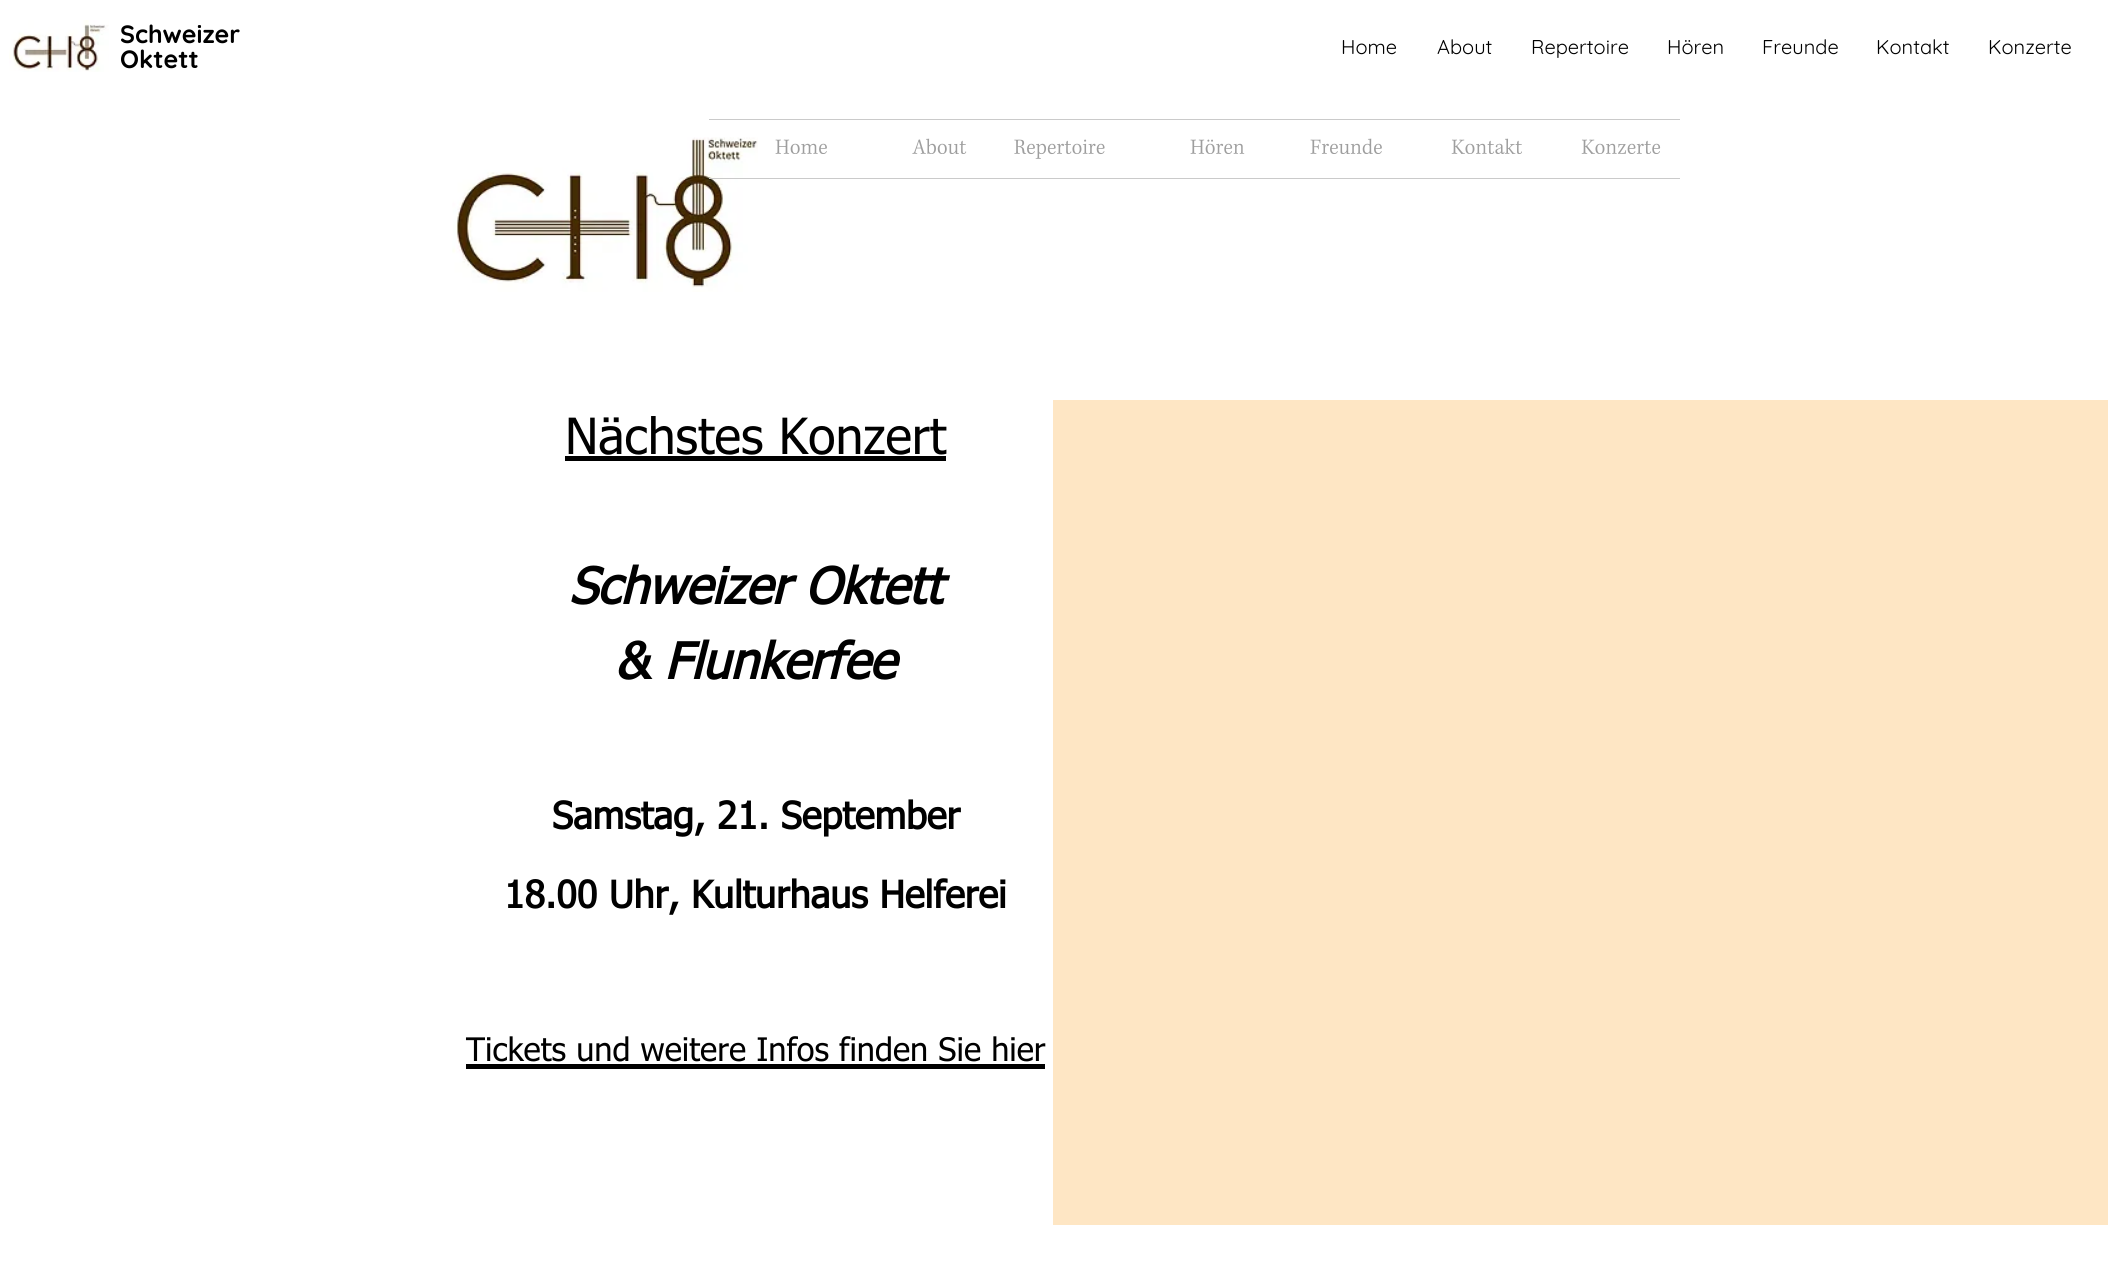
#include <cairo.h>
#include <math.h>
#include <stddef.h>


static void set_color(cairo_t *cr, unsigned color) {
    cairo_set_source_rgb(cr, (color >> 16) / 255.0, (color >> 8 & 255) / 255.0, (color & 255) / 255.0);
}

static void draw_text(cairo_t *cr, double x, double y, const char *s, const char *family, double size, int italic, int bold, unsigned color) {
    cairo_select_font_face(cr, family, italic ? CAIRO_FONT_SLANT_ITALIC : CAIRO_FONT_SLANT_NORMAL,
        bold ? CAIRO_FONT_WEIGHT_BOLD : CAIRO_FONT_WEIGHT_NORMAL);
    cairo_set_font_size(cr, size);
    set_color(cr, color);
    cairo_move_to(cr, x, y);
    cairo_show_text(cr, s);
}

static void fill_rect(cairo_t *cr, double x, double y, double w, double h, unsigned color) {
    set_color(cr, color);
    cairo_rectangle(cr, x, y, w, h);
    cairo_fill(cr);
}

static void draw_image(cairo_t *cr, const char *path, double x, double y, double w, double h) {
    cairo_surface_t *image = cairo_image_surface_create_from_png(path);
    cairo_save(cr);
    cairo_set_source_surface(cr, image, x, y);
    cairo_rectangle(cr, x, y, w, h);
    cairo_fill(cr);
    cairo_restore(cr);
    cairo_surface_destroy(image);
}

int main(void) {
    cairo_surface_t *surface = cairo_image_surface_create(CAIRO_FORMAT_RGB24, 2108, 1269);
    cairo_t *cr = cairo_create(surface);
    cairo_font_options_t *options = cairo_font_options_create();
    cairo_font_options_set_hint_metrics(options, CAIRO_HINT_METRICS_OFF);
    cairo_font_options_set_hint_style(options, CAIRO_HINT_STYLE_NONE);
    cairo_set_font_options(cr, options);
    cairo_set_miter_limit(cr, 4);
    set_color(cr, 0xFFFFFF);
    cairo_paint(cr);
    draw_image(cr, "assets/img1.png", 9, 20, 100, 52);
    draw_text(cr, 120, 43, "Schweizer", "Quicksand", 25, 0, 1, 0x000000);
    draw_text(cr, 120, 68, "Oktett", "Quicksand", 25, 0, 1, 0x000000);
    draw_text(cr, 1341, 54, "Home", "Quicksand", 20, 0, 0, 0x000000);
    draw_text(cr, 1437, 54, "About", "Quicksand", 20, 0, 0, 0x000000);
    draw_text(cr, 1531, 54, "Repertoire", "Quicksand", 20, 0, 0, 0x000000);
    draw_text(cr, 1667, 54, "Hören", "Quicksand", 20, 0, 0, 0x000000);
    draw_text(cr, 1762, 54, "Freunde", "Quicksand", 20, 0, 0, 0x000000);
    draw_text(cr, 1876, 54, "Kontakt", "Quicksand", 20, 0, 0, 0x000000);
    draw_text(cr, 1988, 54, "Konzerte", "Quicksand", 20, 0, 0, 0x000000);
    draw_image(cr, "assets/img2.png", 452, 137, 306, 155);
    fill_rect(cr, 709, 119, 971, 1, 0xCACACA);
    fill_rect(cr, 709, 178, 971, 1, 0xCACACA);
    draw_image(cr, "assets/img3.png", 775, 139, 52, 15);
    draw_image(cr, "assets/img4.png", 912, 138, 55, 16);
    draw_image(cr, "assets/img5.png", 1014, 139, 91, 20);
    draw_image(cr, "assets/img6.png", 1190, 139, 55, 15);
    draw_image(cr, "assets/img7.png", 1310, 138, 72, 16);
    draw_image(cr, "assets/img8.png", 1451, 138, 71, 16);
    draw_image(cr, "assets/img9.png", 1581, 139, 80, 15);
    draw_text(cr, 565, 454, "Nächstes Konzert", "tahoma", 50, 0, 0, 0x000000);
    fill_rect(cr, 565, 456, 381, 5, 0x000000);
    draw_text(cr, 569, 604, "Schweizer Oktett", "tahoma", 50, 1, 1, 0x000000);
    draw_text(cr, 615, 679, "& Flunkerfee", "tahoma", 50, 1, 1, 0x000000);
    draw_text(cr, 552, 829, "Samstag, 21. September", "tahoma", 37.5, 0, 1, 0x000000);
    draw_text(cr, 504, 908, "18.00 Uhr, Kulturhaus Helferei", "tahoma", 37.5, 0, 1, 0x000000);
    draw_text(cr, 466, 1061, "Tickets und weitere Infos finden Sie hier", "tahoma", 32.5, 0, 0, 0x000000);
    fill_rect(cr, 466, 1064, 579, 5, 0x000000);
    fill_rect(cr, 1053, 400, 1055, 825, 0xFEE6C4);
    cairo_surface_write_to_png(surface, "output.png");
    cairo_font_options_destroy(options);
    cairo_destroy(cr);
    cairo_surface_destroy(surface);
    return 0;
}
